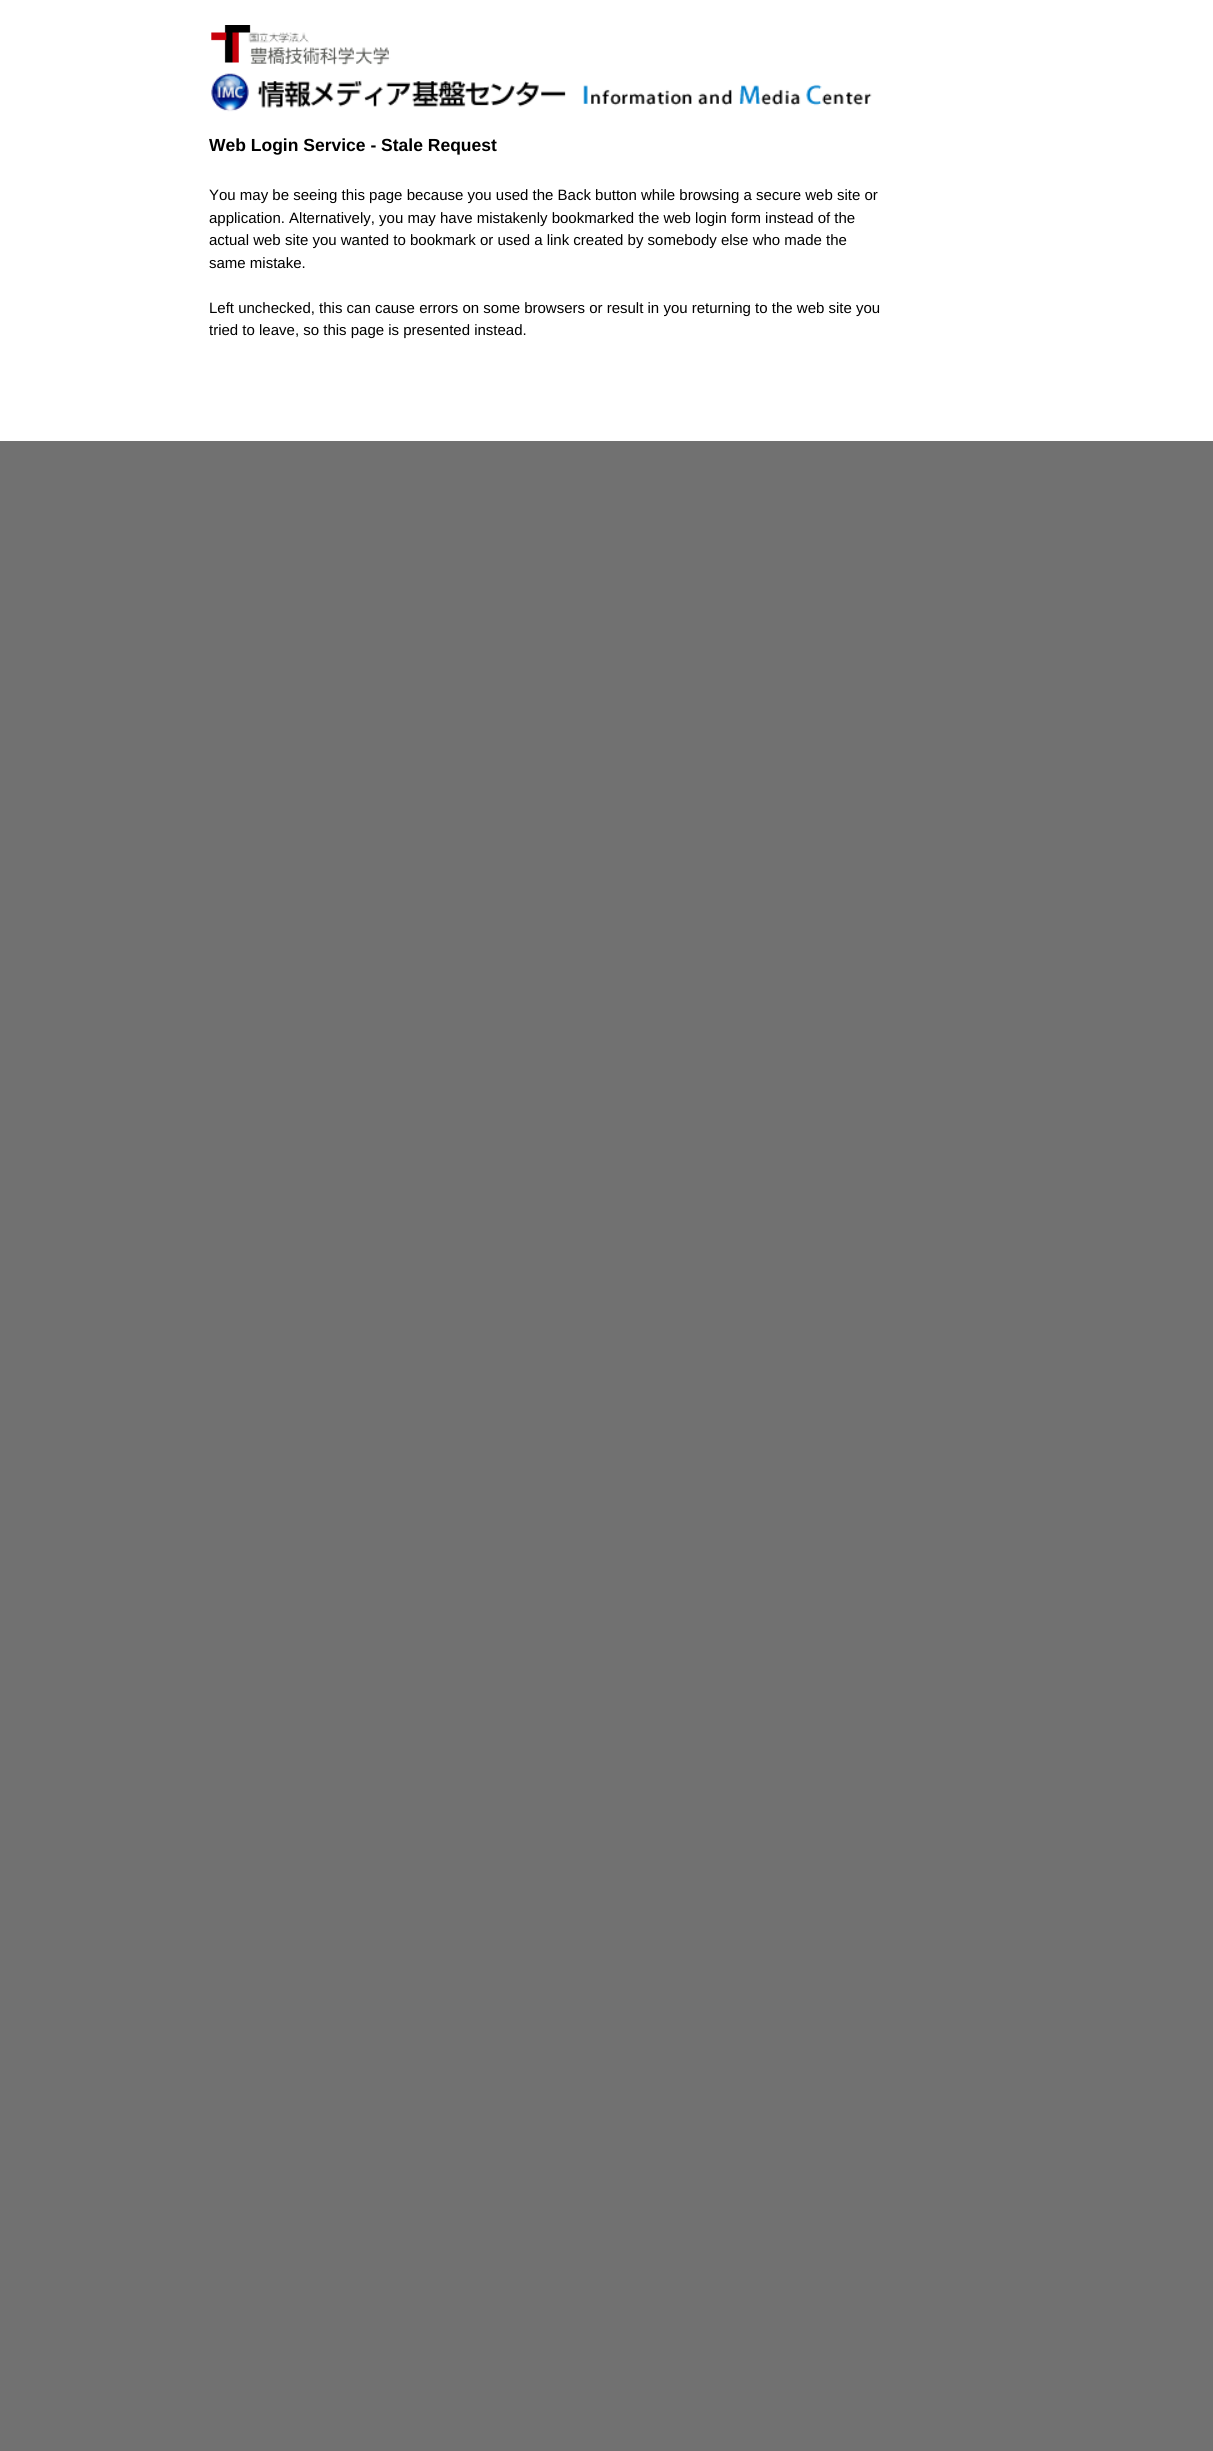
#include <cairo.h>
#include <math.h>
#include <stddef.h>


static void set_color(cairo_t *cr, unsigned color) {
    cairo_set_source_rgb(cr, (color >> 16) / 255.0, (color >> 8 & 255) / 255.0, (color & 255) / 255.0);
}

static void draw_text(cairo_t *cr, double x, double y, const char *s, const char *family, double size, int italic, int bold, unsigned color) {
    cairo_select_font_face(cr, family, italic ? CAIRO_FONT_SLANT_ITALIC : CAIRO_FONT_SLANT_NORMAL,
        bold ? CAIRO_FONT_WEIGHT_BOLD : CAIRO_FONT_WEIGHT_NORMAL);
    cairo_set_font_size(cr, size);
    set_color(cr, color);
    cairo_move_to(cr, x, y);
    cairo_show_text(cr, s);
}

static void fill_rect(cairo_t *cr, double x, double y, double w, double h, unsigned color) {
    set_color(cr, color);
    cairo_rectangle(cr, x, y, w, h);
    cairo_fill(cr);
}

static void draw_image(cairo_t *cr, const char *path, double x, double y, double w, double h) {
    cairo_surface_t *image = cairo_image_surface_create_from_png(path);
    cairo_save(cr);
    cairo_set_source_surface(cr, image, x, y);
    cairo_rectangle(cr, x, y, w, h);
    cairo_fill(cr);
    cairo_restore(cr);
    cairo_surface_destroy(image);
}

int main(void) {
    cairo_surface_t *surface = cairo_image_surface_create(CAIRO_FORMAT_RGB24, 1213, 2451);
    cairo_t *cr = cairo_create(surface);
    cairo_font_options_t *options = cairo_font_options_create();
    cairo_font_options_set_hint_metrics(options, CAIRO_HINT_METRICS_OFF);
    cairo_font_options_set_hint_style(options, CAIRO_HINT_STYLE_NONE);
    cairo_set_font_options(cr, options);
    cairo_set_miter_limit(cr, 4);
    set_color(cr, 0x717171);
    cairo_paint(cr);
    fill_rect(cr, 0, 0, 1213, 441, 0xFFFFFF);
    draw_image(cr, "assets/img1.png", 211, 25, 661, 87);
    draw_text(cr, 209, 151, "Web Login Service - Stale Request", "Liberation Sans", 17.5, 0, 1, 0x000000);
    draw_text(cr, 209, 200, "You may be seeing this page because you used the Back button while browsing a secure web site or", "Liberation Sans", 15, 0, 0, 0x000000);
    draw_text(cr, 209, 223, "application. Alternatively, you may have mistakenly bookmarked the web login form instead of the", "Liberation Sans", 15, 0, 0, 0x000000);
    draw_text(cr, 209, 245, "actual web site you wanted to bookmark or used a link created by somebody else who made the", "Liberation Sans", 15, 0, 0, 0x000000);
    draw_text(cr, 209, 268, "same mistake.", "Liberation Sans", 15, 0, 0, 0x000000);
    draw_text(cr, 209, 313, "Left unchecked, this can cause errors on some browsers or result in you returning to the web site you", "Liberation Sans", 15, 0, 0, 0x000000);
    draw_text(cr, 209, 335, "tried to leave, so this page is presented instead.", "Liberation Sans", 15, 0, 0, 0x000000);
    cairo_surface_write_to_png(surface, "output.png");
    cairo_font_options_destroy(options);
    cairo_destroy(cr);
    cairo_surface_destroy(surface);
    return 0;
}
